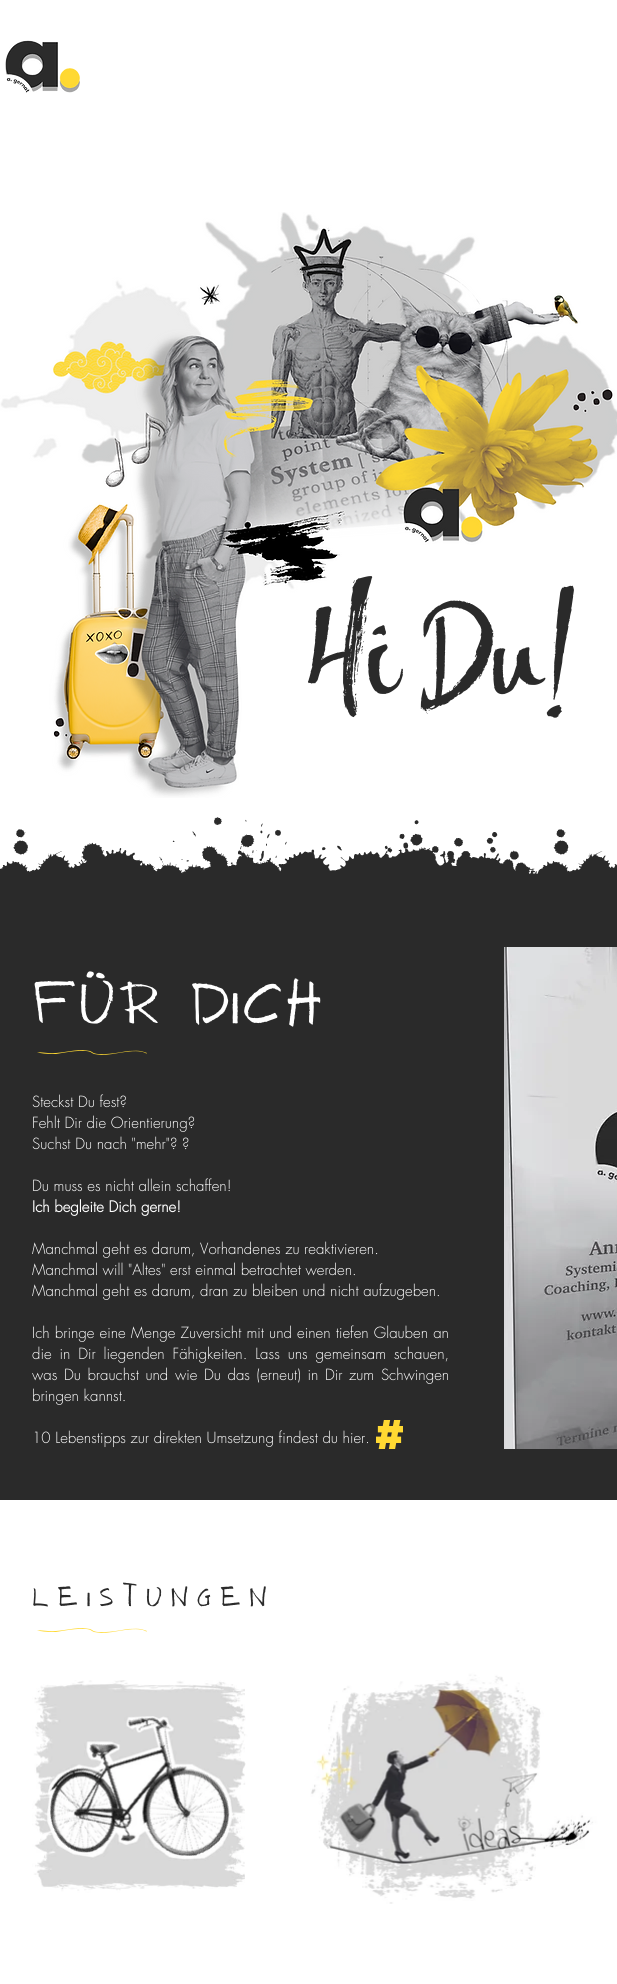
#include <cairo.h>
#include <math.h>
#include <stddef.h>


static void set_color(cairo_t *cr, unsigned color) {
    cairo_set_source_rgb(cr, (color >> 16) / 255.0, (color >> 8 & 255) / 255.0, (color & 255) / 255.0);
}

static void draw_text(cairo_t *cr, double x, double y, const char *s, const char *family, double size, int italic, int bold, unsigned color) {
    cairo_select_font_face(cr, family, italic ? CAIRO_FONT_SLANT_ITALIC : CAIRO_FONT_SLANT_NORMAL,
        bold ? CAIRO_FONT_WEIGHT_BOLD : CAIRO_FONT_WEIGHT_NORMAL);
    cairo_set_font_size(cr, size);
    set_color(cr, color);
    cairo_move_to(cr, x, y);
    cairo_show_text(cr, s);
}

static void draw_spaced(cairo_t *cr, double x, double y, const char *s, double letter, double word) {
    cairo_move_to(cr, x, y);
    while (*s) {
        char ch[5] = {0};
        int n = 0;
        do ch[n++] = *s++; while ((*s & 0xC0) == 0x80);
        cairo_show_text(cr, ch);
        cairo_rel_move_to(cr, letter + word * (*ch == ' '), 0);
    }
}

static void fill_rect(cairo_t *cr, double x, double y, double w, double h, unsigned color) {
    set_color(cr, color);
    cairo_rectangle(cr, x, y, w, h);
    cairo_fill(cr);
}

static void draw_image(cairo_t *cr, const char *path, double x, double y, double w, double h) {
    cairo_surface_t *image = cairo_image_surface_create_from_png(path);
    cairo_save(cr);
    cairo_set_source_surface(cr, image, x, y);
    cairo_rectangle(cr, x, y, w, h);
    cairo_fill(cr);
    cairo_restore(cr);
    cairo_surface_destroy(image);
}

int main(void) {
    cairo_surface_t *surface = cairo_image_surface_create(CAIRO_FORMAT_RGB24, 617, 1984);
    cairo_t *cr = cairo_create(surface);
    cairo_font_options_t *options = cairo_font_options_create();
    cairo_font_options_set_hint_metrics(options, CAIRO_HINT_METRICS_OFF);
    cairo_font_options_set_hint_style(options, CAIRO_HINT_STYLE_NONE);
    cairo_set_font_options(cr, options);
    cairo_set_miter_limit(cr, 4);
    set_color(cr, 0xFFFFFF);
    cairo_paint(cr);
    draw_image(cr, "assets/img1.png", 5, 40, 75, 53);
    draw_image(cr, "assets/img2.png", 0, 212, 617, 586);
    draw_text(cr, 308, 710, "Hi Du!", "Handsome", 176, 0, 0, 0x2A2A2A);
    draw_image(cr, "assets/img3.png", 0, 817, 617, 70);
    fill_rect(cr, 0, 887, 617, 613, 0x2A2A2A);
    cairo_select_font_face(cr, "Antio", CAIRO_FONT_SLANT_NORMAL, CAIRO_FONT_WEIGHT_NORMAL);
    cairo_set_font_size(cr, 90);
    set_color(cr, 0xFFFFFF);
    draw_spaced(cr, 32, 1023, "Für Dich", 1, 0);
    draw_image(cr, "assets/img4.png", 504, 947, 113, 502);
    set_color(cr, 0xFFD932);
    cairo_new_path(cr);
    cairo_move_to(cr, 101, 1055);
    cairo_line_to(cr, 94, 1054);
    cairo_line_to(cr, 92, 1053);
    cairo_curve_to(cr, 87, 1048, 62, 1053, 56, 1054);
    cairo_curve_to(cr, 51, 1054, 45, 1054, 40, 1053);
    cairo_line_to(cr, 37, 1052);
    cairo_line_to(cr, 48, 1053);
    cairo_curve_to(cr, 59, 1054, 71, 1050, 83, 1050);
    cairo_line_to(cr, 90, 1051);
    cairo_line_to(cr, 92, 1052);
    cairo_curve_to(cr, 97, 1057, 122, 1052, 128, 1051);
    cairo_curve_to(cr, 133, 1051, 139, 1050, 144, 1052);
    cairo_line_to(cr, 147, 1053);
    cairo_curve_to(cr, 147, 1054, 145, 1053, 143, 1052);
    cairo_curve_to(cr, 130, 1049, 115, 1055, 101, 1055);
    cairo_close_path(cr);
    cairo_fill(cr);
    draw_text(cr, 32, 1107, "Steckst Du fest?", "futura Light", 15, 0, 0, 0xFFFFFF);
    draw_text(cr, 32, 1128, "Fehlt Dir die Orientierung?", "futura Light", 15, 0, 0, 0xFFFFFF);
    draw_text(cr, 32, 1149, "Suchst Du nach \"mehr\"? ?", "futura Light", 15, 0, 0, 0xFFFFFF);
    draw_text(cr, 32, 1191, "Du muss es nicht allein schaffen!", "futura Light", 15, 0, 0, 0xFFFFFF);
    draw_text(cr, 32, 1212, "Ich begleite Dich gerne!", "futura", 15, 0, 1, 0xFFFFFF);
    draw_text(cr, 32, 1254, "Manchmal geht es darum, Vorhandenes zu reaktivieren.", "futura Light", 15, 0, 0, 0xFFFFFF);
    draw_text(cr, 32, 1275, "Manchmal will \"Altes\" erst einmal betrachtet werden.", "futura Light", 15, 0, 0, 0xFFFFFF);
    draw_text(cr, 32, 1296, "Manchmal geht es darum, dran zu bleiben und nicht aufzugeben.", "futura Light", 15, 0, 0, 0xFFFFFF);
    draw_spaced(cr, 32, 1338, "Ich bringe eine Menge Zuversicht mit und einen tiefen Glauben an", 0, 0.5);
    draw_spaced(cr, 32, 1359, "die in Dir liegenden Fähigkeiten. Lass uns gemeinsam schauen,", 0, 3.25);
    draw_spaced(cr, 32, 1380, "was Du brauchst und wie Du das (erneut) in Dir zum Schwingen", 0, 2);
    draw_text(cr, 32, 1401, "bringen kannst.", "futura Light", 15, 0, 0, 0xFFFFFF);
    draw_text(cr, 32, 1443, "10 Lebenstipps zur direkten Umsetzung findest du hier.", "futura Light", 15, 0, 0, 0xFFFFFF);
    draw_image(cr, "assets/img5.png", 376, 1420, 27, 29);
    cairo_select_font_face(cr, "Antio", CAIRO_FONT_SLANT_NORMAL, CAIRO_FONT_WEIGHT_NORMAL);
    cairo_set_font_size(cr, 40);
    set_color(cr, 0x2A2A2A);
    draw_spaced(cr, 32, 1606, "LEISTUNGEN", 8, 0);
    set_color(cr, 0xFFD932);
    cairo_new_path(cr);
    cairo_move_to(cr, 101, 1633);
    cairo_line_to(cr, 94, 1632);
    cairo_line_to(cr, 92, 1631);
    cairo_curve_to(cr, 87, 1626, 62, 1631, 56, 1632);
    cairo_curve_to(cr, 51, 1632, 45, 1632, 40, 1631);
    cairo_line_to(cr, 37, 1630);
    cairo_line_to(cr, 48, 1631);
    cairo_curve_to(cr, 59, 1632, 71, 1628, 83, 1628);
    cairo_line_to(cr, 90, 1629);
    cairo_line_to(cr, 92, 1630);
    cairo_curve_to(cr, 97, 1635, 122, 1630, 128, 1629);
    cairo_curve_to(cr, 133, 1629, 139, 1628, 144, 1630);
    cairo_line_to(cr, 147, 1631);
    cairo_curve_to(cr, 147, 1632, 145, 1631, 143, 1630);
    cairo_curve_to(cr, 130, 1627, 115, 1633, 101, 1633);
    cairo_close_path(cr);
    cairo_fill(cr);
    draw_image(cr, "assets/img6.png", 0, 1640, 285, 285);
    draw_image(cr, "assets/img7.png", 295, 1640, 303, 285);
    cairo_surface_write_to_png(surface, "output.png");
    cairo_font_options_destroy(options);
    cairo_destroy(cr);
    cairo_surface_destroy(surface);
    return 0;
}
